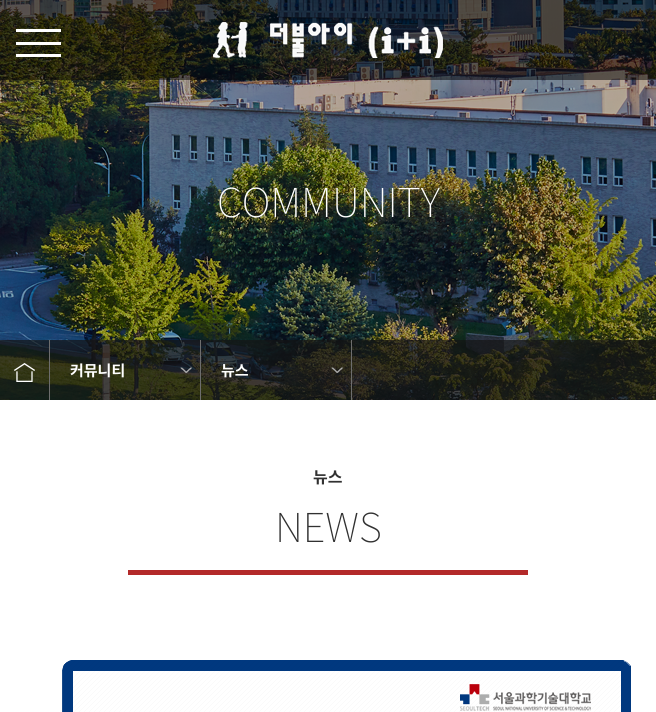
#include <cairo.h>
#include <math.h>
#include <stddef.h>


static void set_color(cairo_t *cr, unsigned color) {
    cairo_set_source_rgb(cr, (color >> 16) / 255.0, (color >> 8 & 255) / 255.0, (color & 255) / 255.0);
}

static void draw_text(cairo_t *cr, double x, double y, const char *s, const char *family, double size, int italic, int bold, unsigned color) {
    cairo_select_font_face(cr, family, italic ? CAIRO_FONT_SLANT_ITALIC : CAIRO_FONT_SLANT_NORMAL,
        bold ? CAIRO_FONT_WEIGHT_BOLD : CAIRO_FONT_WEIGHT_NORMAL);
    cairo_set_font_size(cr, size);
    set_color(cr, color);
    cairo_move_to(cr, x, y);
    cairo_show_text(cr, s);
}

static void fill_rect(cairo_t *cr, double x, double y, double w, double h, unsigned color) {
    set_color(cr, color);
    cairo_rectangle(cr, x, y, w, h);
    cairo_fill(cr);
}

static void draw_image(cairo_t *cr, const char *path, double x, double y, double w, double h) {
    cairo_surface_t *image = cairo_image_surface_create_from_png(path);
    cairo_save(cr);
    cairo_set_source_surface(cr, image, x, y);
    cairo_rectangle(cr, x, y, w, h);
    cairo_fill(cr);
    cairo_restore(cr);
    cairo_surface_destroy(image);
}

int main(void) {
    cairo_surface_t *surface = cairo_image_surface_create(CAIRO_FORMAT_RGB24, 656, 712);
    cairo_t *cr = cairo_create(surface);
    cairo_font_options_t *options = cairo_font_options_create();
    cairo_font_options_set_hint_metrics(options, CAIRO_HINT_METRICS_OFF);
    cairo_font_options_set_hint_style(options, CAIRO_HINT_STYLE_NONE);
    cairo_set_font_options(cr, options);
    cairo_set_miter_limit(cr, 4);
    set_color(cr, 0xFFFFFF);
    cairo_paint(cr);
    draw_image(cr, "assets/img3.png", 0, 0, 656, 400);
    cairo_set_source_rgba(cr, 0, 0, 0, 0.5);
    cairo_rectangle(cr, 0, 0, 656, 80);
    cairo_fill(cr);
    draw_image(cr, "assets/img1.png", 16, 29, 45, 28);
    draw_image(cr, "assets/img2.png", 213, 22, 230, 36);
    draw_text(cr, 217, 217, "COMMUNITY", "Noto Sans KR Thin", 40, 0, 0, 0xFFFFFF);
    cairo_set_source_rgba(cr, 0.082, 0.082, 0.082, 0.7);
    cairo_rectangle(cr, 0, 340, 656, 60);
    cairo_fill(cr);
    fill_rect(cr, 49, 340, 1, 60, 0x6D6D6D);
    draw_image(cr, "assets/img4.png", 14, 363, 21, 19);
    draw_image(cr, "assets/img5.png", 180, 367, 12, 6);
    fill_rect(cr, 200, 340, 1, 60, 0x6D6D6D);
    draw_text(cr, 70, 376, "커뮤니티", "Noto Sans KR", 15, 0, 1, 0xFFFFFF);
    draw_image(cr, "assets/img6.png", 331, 367, 12, 6);
    fill_rect(cr, 351, 340, 1, 60, 0x6D6D6D);
    draw_text(cr, 221, 376, "뉴스", "Noto Sans KR", 15, 0, 1, 0xFFFFFF);
    draw_text(cr, 313, 483, "뉴스", "Noto Sans KR", 16, 0, 1, 0x313131);
    fill_rect(cr, 128, 570, 400, 5, 0xB32A2A);
    draw_text(cr, 275, 542, "NEWS", "Noto Sans KR Thin", 40, 0, 0, 0x313131);
    draw_image(cr, "assets/img7.png", 62, 660, 569, 52);
    cairo_surface_write_to_png(surface, "output.png");
    cairo_font_options_destroy(options);
    cairo_destroy(cr);
    cairo_surface_destroy(surface);
    return 0;
}
